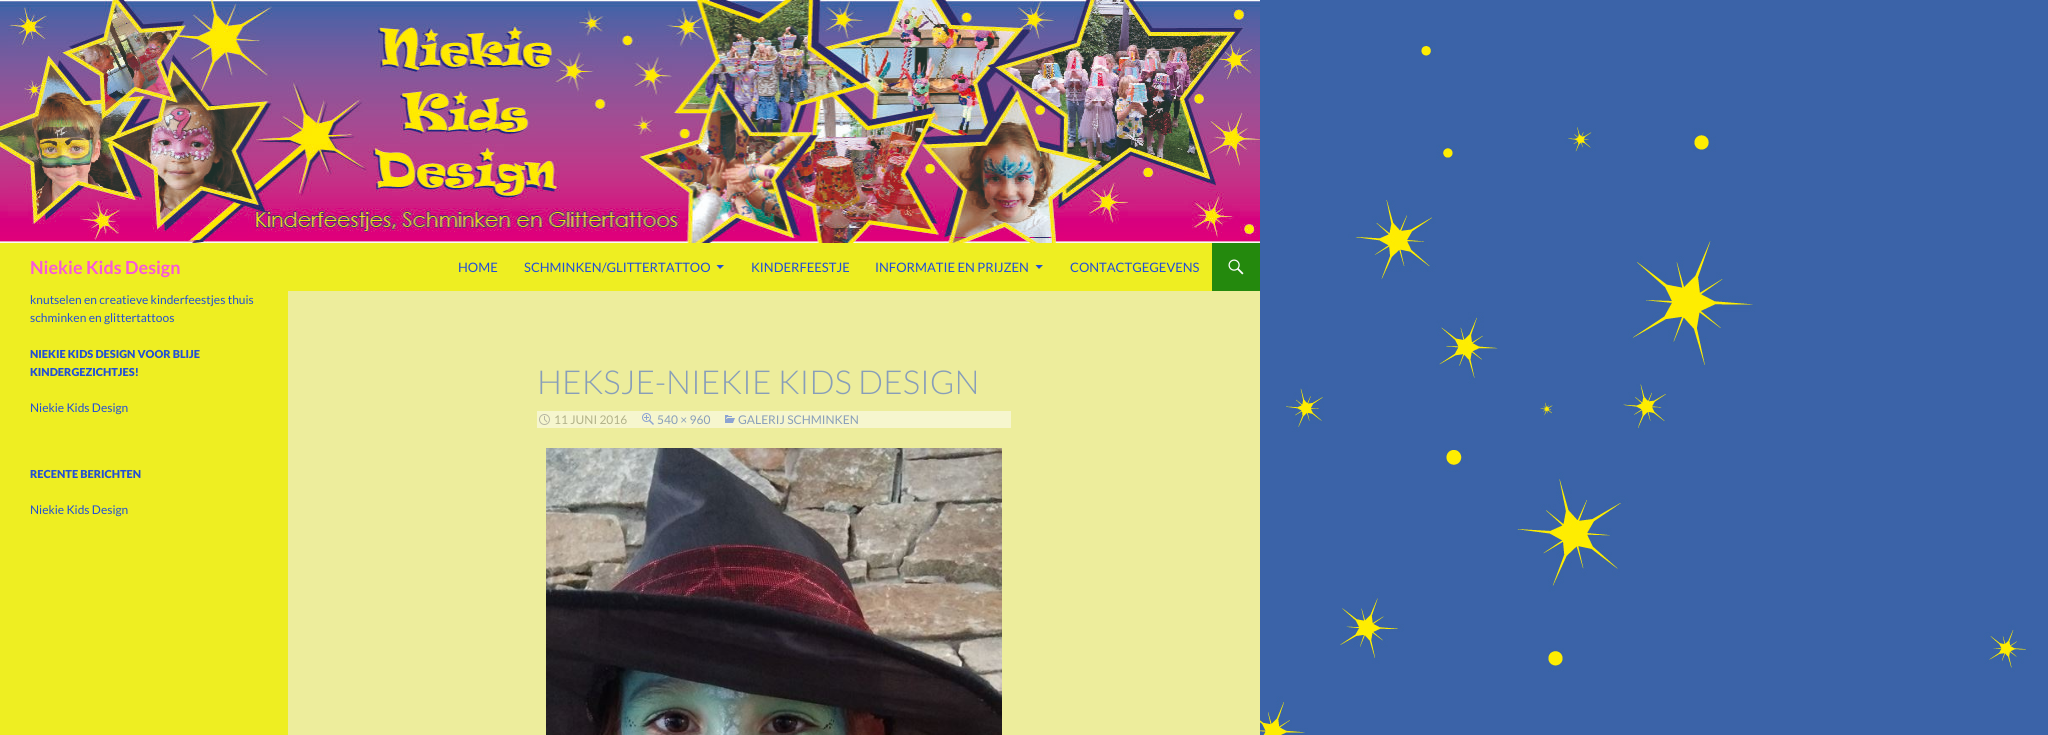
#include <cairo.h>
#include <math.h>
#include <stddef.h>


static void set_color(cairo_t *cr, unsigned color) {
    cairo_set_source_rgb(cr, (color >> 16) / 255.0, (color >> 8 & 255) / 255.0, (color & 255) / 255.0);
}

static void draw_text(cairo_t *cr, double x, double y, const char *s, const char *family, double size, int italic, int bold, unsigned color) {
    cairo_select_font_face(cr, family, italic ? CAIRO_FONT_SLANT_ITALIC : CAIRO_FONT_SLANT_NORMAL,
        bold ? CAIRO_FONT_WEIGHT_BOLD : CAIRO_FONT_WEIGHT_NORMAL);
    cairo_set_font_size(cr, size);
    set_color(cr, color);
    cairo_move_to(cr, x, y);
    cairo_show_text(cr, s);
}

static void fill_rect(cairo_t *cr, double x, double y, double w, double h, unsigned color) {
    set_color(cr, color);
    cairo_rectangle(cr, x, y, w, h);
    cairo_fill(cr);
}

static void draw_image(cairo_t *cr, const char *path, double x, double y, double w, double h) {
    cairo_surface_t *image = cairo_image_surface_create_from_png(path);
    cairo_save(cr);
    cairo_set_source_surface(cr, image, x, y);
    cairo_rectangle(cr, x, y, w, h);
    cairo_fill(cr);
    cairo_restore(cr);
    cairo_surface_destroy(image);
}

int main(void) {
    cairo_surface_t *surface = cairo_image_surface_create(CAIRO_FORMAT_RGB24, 2048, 735);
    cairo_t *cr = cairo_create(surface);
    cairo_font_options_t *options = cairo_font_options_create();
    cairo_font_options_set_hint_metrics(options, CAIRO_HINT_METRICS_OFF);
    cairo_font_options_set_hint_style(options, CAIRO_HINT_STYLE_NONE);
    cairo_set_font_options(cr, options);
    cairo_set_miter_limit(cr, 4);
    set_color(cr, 0xFFFFFF);
    cairo_paint(cr);
    draw_image(cr, "assets/img1.png", 1260, 0, 788, 735);
    draw_image(cr, "assets/img2.png", 0, 0, 1260, 243);
    fill_rect(cr, 0, 243, 1212, 48, 0xEEEE22);
    draw_text(cr, 30, 274, "Niekie Kids Design", "Lato", 18, 0, 1, 0xF957DC);
    draw_text(cr, 458, 272, "HOME", "Lato", 13, 0, 0, 0x224FD6);
    draw_text(cr, 524, 272, "SCHMINKEN/GLITTERTATTOO", "Lato", 13, 0, 0, 0x224FD6);
    cairo_new_path(cr);
    cairo_move_to(cr, 716.5, 265);
    cairo_line_to(cr, 720, 269);
    cairo_line_to(cr, 724, 265);
    cairo_close_path(cr);
    cairo_fill(cr);
    draw_text(cr, 751, 272, "KINDERFEESTJE", "Lato", 13, 0, 0, 0x224FD6);
    draw_text(cr, 875, 272, "INFORMATIE EN PRIJZEN", "Lato", 13, 0, 0, 0x224FD6);
    cairo_new_path(cr);
    cairo_move_to(cr, 1035.5, 265);
    cairo_line_to(cr, 1039, 269);
    cairo_line_to(cr, 1043, 265);
    cairo_close_path(cr);
    cairo_fill(cr);
    draw_text(cr, 1070, 272, "CONTACTGEGEVENS", "Lato", 13, 0, 0, 0x224FD6);
    fill_rect(cr, 1212, 243, 48, 48, 0x24890D);
    draw_image(cr, "assets/img3.png", 1228, 259, 16, 16);
    fill_rect(cr, 0, 291, 288, 444, 0xEEEE22);
    fill_rect(cr, 288, 291, 972, 444, 0xEDED9C);
    draw_text(cr, 30, 304, "knutselen en creatieve kinderfeestjes thuis", "Lato", 12, 0, 0, 0x224FD6);
    draw_text(cr, 30, 322, "schminken en glittertattoos", "Lato", 12, 0, 0, 0x224FD6);
    draw_text(cr, 30, 358, "NIEKIE KIDS DESIGN VOOR BLIJE", "Lato Black", 11, 0, 0, 0x224FD6);
    draw_text(cr, 30, 376, "KINDERGEZICHTJES!", "Lato Black", 11, 0, 0, 0x224FD6);
    draw_text(cr, 30, 412, "Niekie Kids Design", "Lato", 12, 0, 0, 0x224FD6);
    draw_text(cr, 30, 478, "RECENTE BERICHTEN", "Lato Black", 11, 0, 0, 0x224FD6);
    draw_text(cr, 30, 514, "Niekie Kids Design", "Lato", 12, 0, 0, 0x224FD6);
    draw_text(cr, 537, 394, "HEKSJE-NIEKIE KIDS DESIGN", "Lato Light", 33, 0, 0, 0x889EB9);
    fill_rect(cr, 537, 411, 474, 17, 0xF6F6CE);
    draw_image(cr, "assets/img4.png", 539, 414, 11, 11);
    draw_text(cr, 554, 424, "11 JUNI 2016", "Lato", 12, 0, 0, 0xB2B289);
    draw_image(cr, "assets/img5.png", 642, 413, 12, 12);
    draw_text(cr, 657, 424, "540 × 960", "Lato", 12, 0, 0, 0x889EB9);
    draw_image(cr, "assets/img6.png", 725, 415, 10, 8);
    draw_text(cr, 738, 424, "GALERIJ SCHMINKEN", "Lato", 12, 0, 0, 0x889EB9);
    draw_image(cr, "assets/img7.png", 546, 448, 456, 287);
    cairo_surface_write_to_png(surface, "output.png");
    cairo_font_options_destroy(options);
    cairo_destroy(cr);
    cairo_surface_destroy(surface);
    return 0;
}
